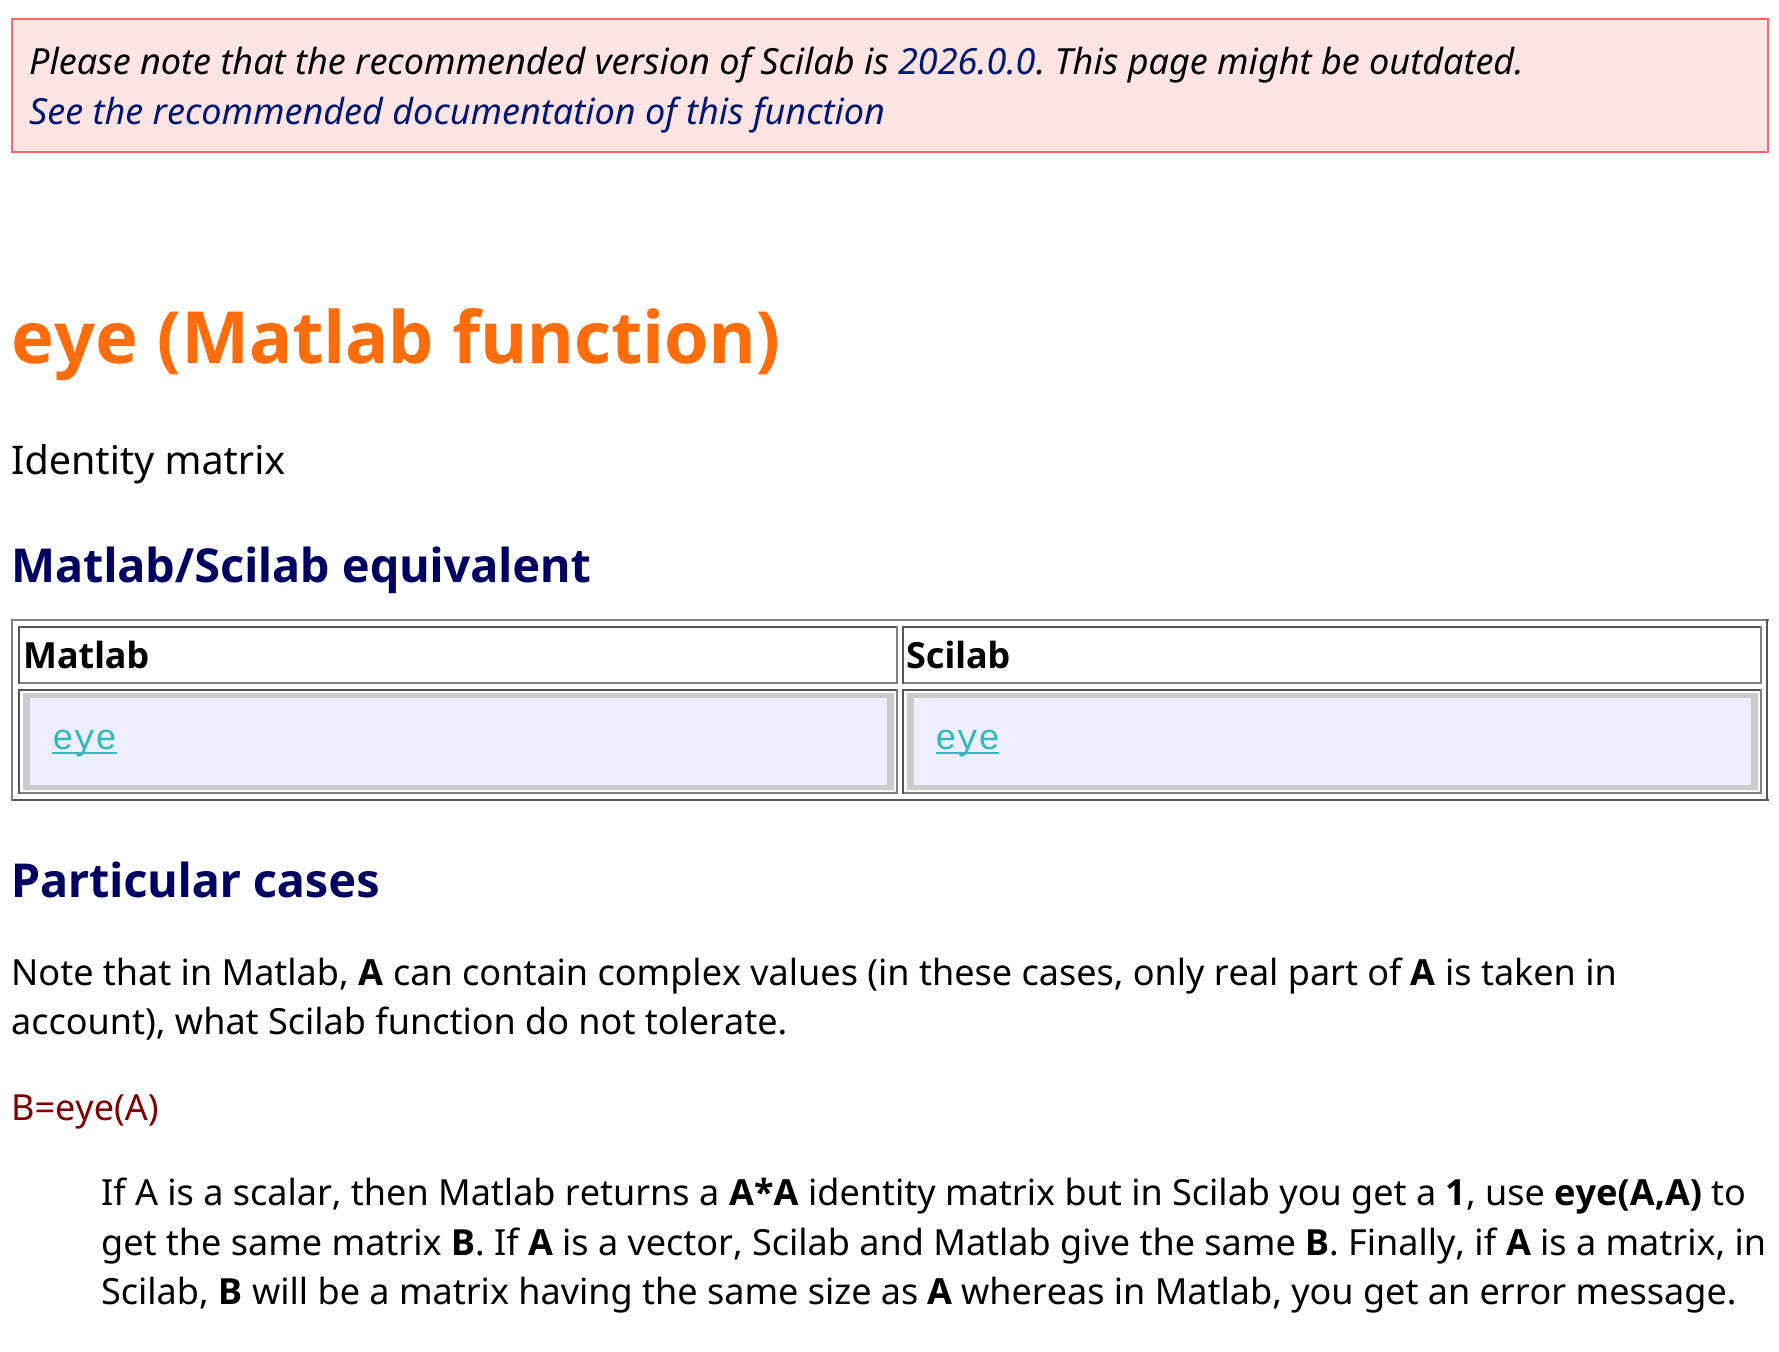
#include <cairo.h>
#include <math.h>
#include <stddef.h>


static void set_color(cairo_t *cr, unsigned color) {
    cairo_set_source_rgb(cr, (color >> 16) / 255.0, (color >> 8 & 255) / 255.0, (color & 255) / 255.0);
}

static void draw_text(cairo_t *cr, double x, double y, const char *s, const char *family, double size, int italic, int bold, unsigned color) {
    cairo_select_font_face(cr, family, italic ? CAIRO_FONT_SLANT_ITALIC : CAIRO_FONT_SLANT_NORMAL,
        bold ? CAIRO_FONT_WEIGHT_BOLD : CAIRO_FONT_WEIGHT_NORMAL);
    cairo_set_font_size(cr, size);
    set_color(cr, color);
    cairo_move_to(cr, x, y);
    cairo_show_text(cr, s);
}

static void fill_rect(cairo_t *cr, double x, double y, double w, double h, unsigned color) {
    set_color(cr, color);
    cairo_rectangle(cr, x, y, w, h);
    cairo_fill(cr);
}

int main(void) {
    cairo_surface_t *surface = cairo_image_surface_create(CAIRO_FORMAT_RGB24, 1779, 1352);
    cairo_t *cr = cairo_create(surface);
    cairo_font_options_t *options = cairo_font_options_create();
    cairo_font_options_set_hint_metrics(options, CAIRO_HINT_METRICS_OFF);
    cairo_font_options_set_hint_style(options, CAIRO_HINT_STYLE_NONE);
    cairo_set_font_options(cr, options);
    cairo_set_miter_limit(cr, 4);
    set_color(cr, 0xFFFFFF);
    cairo_paint(cr);
    set_color(cr, 0xFFE4E4);
    cairo_rectangle(cr, 12, 19, 1756, 133);
    cairo_fill_preserve(cr);
    set_color(cr, 0xFF6666);
    cairo_stroke(cr);
    draw_text(cr, 29, 74, "Please note that the recommended version of Scilab is", "Noto Sans", 36, 1, 0, 0x000000);
    draw_text(cr, 898, 74, "2026.0.0", "Noto Sans", 36, 1, 0, 0x001871);
    draw_text(cr, 1036, 74, ". This page might be outdated.", "Noto Sans", 36, 1, 0, 0x000000);
    draw_text(cr, 29, 124, "See the recommended documentation of this function", "Noto Sans", 36, 1, 0, 0x001871);
    draw_text(cr, 11, 363, "eye (Matlab function)", "Noto Sans", 72, 0, 1, 0xFF6C0A);
    draw_text(cr, 11, 474, "Identity matrix", "Noto Sans", 39.5, 0, 0, 0x000000);
    draw_text(cr, 11, 582, "Matlab/Scilab equivalent", "Noto Sans", 46.75, 0, 1, 0x000063);
    fill_rect(cr, 11, 619, 1758, 2, 0x808080);
    fill_rect(cr, 1766, 619, 2, 182, 0x555555);
    fill_rect(cr, 11, 799, 1758, 2, 0x555555);
    fill_rect(cr, 11, 619, 2, 182, 0x808080);
    fill_rect(cr, 18, 626, 880, 2, 0x555555);
    fill_rect(cr, 896, 626, 2, 58, 0x808080);
    fill_rect(cr, 18, 682, 880, 2, 0x808080);
    fill_rect(cr, 18, 626, 2, 58, 0x555555);
    draw_text(cr, 23, 668, "Matlab", "Noto Sans", 36, 0, 1, 0x000000);
    fill_rect(cr, 902, 626, 860, 2, 0x555555);
    fill_rect(cr, 1760, 626, 2, 58, 0x808080);
    fill_rect(cr, 902, 682, 860, 2, 0x808080);
    fill_rect(cr, 902, 626, 2, 58, 0x555555);
    draw_text(cr, 906, 668, "Scilab", "Noto Sans", 36, 0, 1, 0x000000);
    fill_rect(cr, 18, 689, 880, 2, 0x555555);
    fill_rect(cr, 896, 689, 2, 105, 0x808080);
    fill_rect(cr, 18, 792, 880, 2, 0x808080);
    fill_rect(cr, 18, 689, 2, 105, 0x555555);
    fill_rect(cr, 30, 698, 857, 87, 0xEEEEFF);
    fill_rect(cr, 23, 693, 870, 5, 0xCCCCCC);
    fill_rect(cr, 887, 693, 7, 97, 0xCCCCCC);
    fill_rect(cr, 23, 785, 870, 5, 0xCCCCCC);
    fill_rect(cr, 23, 693, 7, 97, 0xCCCCCC);
    fill_rect(cr, 52, 752, 65, 2, 0x32B9B9);
    draw_text(cr, 52, 749, "eye", "Liberation Mono", 36, 0, 0, 0x32B9B9);
    fill_rect(cr, 902, 689, 860, 2, 0x555555);
    fill_rect(cr, 1760, 689, 2, 105, 0x808080);
    fill_rect(cr, 902, 792, 860, 2, 0x808080);
    fill_rect(cr, 902, 689, 2, 105, 0x555555);
    fill_rect(cr, 914, 698, 837, 87, 0xEEEEFF);
    fill_rect(cr, 907, 693, 850, 5, 0xCCCCCC);
    fill_rect(cr, 1751, 693, 7, 97, 0xCCCCCC);
    fill_rect(cr, 907, 785, 850, 5, 0xCCCCCC);
    fill_rect(cr, 907, 693, 7, 97, 0xCCCCCC);
    fill_rect(cr, 936, 752, 63, 2, 0x32B9B9);
    draw_text(cr, 935, 749, "eye", "Liberation Mono", 36, 0, 0, 0x32B9B9);
    draw_text(cr, 11, 897, "Particular cases", "Noto Sans", 46.75, 0, 1, 0x000063);
    draw_text(cr, 11, 985, "Note that in Matlab,", "Noto Sans", 36, 0, 0, 0x000000);
    draw_text(cr, 358, 985, "A", "Noto Sans", 36, 0, 1, 0x000000);
    draw_text(cr, 393, 985, "can contain complex values (in these cases, only real part of", "Noto Sans", 36, 0, 0, 0x000000);
    draw_text(cr, 1410, 985, "A", "Noto Sans", 36, 0, 1, 0x000000);
    draw_text(cr, 1445, 985, "is taken in", "Noto Sans", 36, 0, 0, 0x000000);
    draw_text(cr, 11, 1034, "account), what Scilab function do not tolerate.", "Noto Sans", 36, 0, 0, 0x000000);
    draw_text(cr, 11, 1120, "B=eye(A)", "Noto Sans", 36, 0, 0, 0x800000);
    draw_text(cr, 101, 1205, "If A is a scalar, then Matlab returns a", "Noto Sans", 36, 0, 0, 0x000000);
    draw_text(cr, 729, 1205, "A*A", "Noto Sans", 36, 0, 1, 0x000000);
    draw_text(cr, 808, 1205, "identity matrix but in Scilab you get a", "Noto Sans", 36, 0, 0, 0x000000);
    draw_text(cr, 1445, 1205, "1", "Noto Sans", 36, 0, 1, 0x000000);
    draw_text(cr, 1466, 1205, ", use", "Noto Sans", 36, 0, 0, 0x000000);
    draw_text(cr, 1554, 1205, "eye(A,A)", "Noto Sans", 36, 0, 1, 0x000000);
    draw_text(cr, 1711, 1205, "to", "Noto Sans", 36, 0, 0, 0x000000);
    draw_text(cr, 101, 1255, "get the same matrix", "Noto Sans", 36, 0, 0, 0x000000);
    draw_text(cr, 451, 1255, "B", "Noto Sans", 36, 0, 1, 0x000000);
    draw_text(cr, 475, 1255, ". If", "Noto Sans", 36, 0, 0, 0x000000);
    draw_text(cr, 528, 1255, "A", "Noto Sans", 36, 0, 1, 0x000000);
    draw_text(cr, 562, 1255, "is a vector, Scilab and Matlab give the same", "Noto Sans", 36, 0, 0, 0x000000);
    draw_text(cr, 1305, 1255, "B", "Noto Sans", 36, 0, 1, 0x000000);
    draw_text(cr, 1329, 1255, ". Finally, if", "Noto Sans", 36, 0, 0, 0x000000);
    draw_text(cr, 1506, 1255, "A", "Noto Sans", 36, 0, 1, 0x000000);
    draw_text(cr, 1540, 1255, "is a matrix, in", "Noto Sans", 36, 0, 0, 0x000000);
    draw_text(cr, 101, 1304, "Scilab,", "Noto Sans", 36, 0, 0, 0x000000);
    draw_text(cr, 218, 1304, "B", "Noto Sans", 36, 0, 1, 0x000000);
    draw_text(cr, 252, 1304, "will be a matrix having the same size as", "Noto Sans", 36, 0, 0, 0x000000);
    draw_text(cr, 927, 1304, "A", "Noto Sans", 36, 0, 1, 0x000000);
    draw_text(cr, 961, 1304, "whereas in Matlab, you get an error message.", "Noto Sans", 36, 0, 0, 0x000000);
    cairo_surface_write_to_png(surface, "output.png");
    cairo_font_options_destroy(options);
    cairo_destroy(cr);
    cairo_surface_destroy(surface);
    return 0;
}
